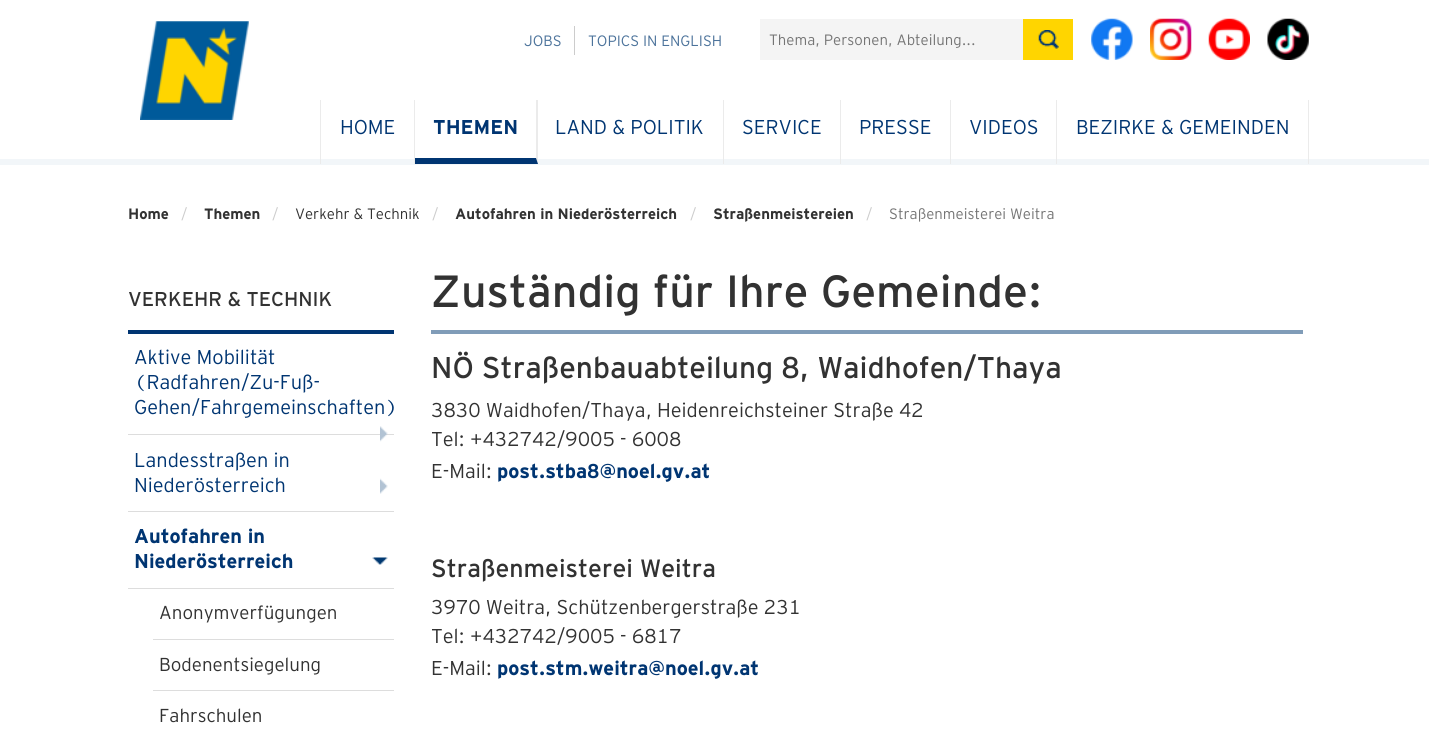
#include <cairo.h>
#include <math.h>
#include <stddef.h>


static void set_color(cairo_t *cr, unsigned color) {
    cairo_set_source_rgb(cr, (color >> 16) / 255.0, (color >> 8 & 255) / 255.0, (color & 255) / 255.0);
}

static void draw_text(cairo_t *cr, double x, double y, const char *s, const char *family, double size, int italic, int bold, unsigned color) {
    cairo_select_font_face(cr, family, italic ? CAIRO_FONT_SLANT_ITALIC : CAIRO_FONT_SLANT_NORMAL,
        bold ? CAIRO_FONT_WEIGHT_BOLD : CAIRO_FONT_WEIGHT_NORMAL);
    cairo_set_font_size(cr, size);
    set_color(cr, color);
    cairo_move_to(cr, x, y);
    cairo_show_text(cr, s);
}

static void fill_rect(cairo_t *cr, double x, double y, double w, double h, unsigned color) {
    set_color(cr, color);
    cairo_rectangle(cr, x, y, w, h);
    cairo_fill(cr);
}

static void draw_image(cairo_t *cr, const char *path, double x, double y, double w, double h) {
    cairo_surface_t *image = cairo_image_surface_create_from_png(path);
    cairo_save(cr);
    cairo_set_source_surface(cr, image, x, y);
    cairo_rectangle(cr, x, y, w, h);
    cairo_fill(cr);
    cairo_restore(cr);
    cairo_surface_destroy(image);
}

int main(void) {
    cairo_surface_t *surface = cairo_image_surface_create(CAIRO_FORMAT_RGB24, 1429, 730);
    cairo_t *cr = cairo_create(surface);
    cairo_font_options_t *options = cairo_font_options_create();
    cairo_font_options_set_hint_metrics(options, CAIRO_HINT_METRICS_OFF);
    cairo_font_options_set_hint_style(options, CAIRO_HINT_STYLE_NONE);
    cairo_set_font_options(cr, options);
    cairo_set_miter_limit(cr, 4);
    set_color(cr, 0xFFFFFF);
    cairo_paint(cr);
    fill_rect(cr, 0, 159, 1429, 6, 0xF2F6F9);
    draw_image(cr, "assets/img1.png", 140, 21, 109, 99);
    draw_text(cr, 524, 46, "JOBS", "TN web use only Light", 15, 0, 0, 0x4C739B);
    fill_rect(cr, 574, 26, 1, 29, 0xCCCCCC);
    draw_text(cr, 588, 46, "TOPICS IN ENGLISH", "TN web use only Light", 15, 0, 0, 0x4C739B);
    fill_rect(cr, 760, 19, 263, 41, 0xF4F4F4);
    draw_text(cr, 769, 45, "Thema, Personen, Abteilung...", "TN web use only Light", 15, 0, 0, 0x757575);
    fill_rect(cr, 1023, 19, 50, 41, 0xFFD500);
    draw_image(cr, "assets/img2.png", 1038, 30, 21, 19);
    draw_image(cr, "assets/img3.png", 1091, 18, 42, 42);
    draw_image(cr, "assets/img4.png", 1150, 18, 42, 42);
    draw_image(cr, "assets/img5.png", 1208, 18, 42, 42);
    draw_image(cr, "assets/img6.png", 1267, 18, 42, 42);
    fill_rect(cr, 414, 100, 1, 64, 0xEBEBEB);
    fill_rect(cr, 320, 100, 1, 64, 0xEBEBEB);
    draw_text(cr, 340, 134, "HOME", "TN web use only Light", 20, 0, 0, 0x003572);
    set_color(cr, 0xEBEBEB);
    cairo_new_path(cr);
    cairo_move_to(cr, 538, 100);
    cairo_line_to(cr, 538, 164);
    cairo_line_to(cr, 536, 158);
    cairo_line_to(cr, 536, 100);
    cairo_close_path(cr);
    cairo_fill(cr);
    set_color(cr, 0x003572);
    cairo_new_path(cr);
    cairo_move_to(cr, 538, 164);
    cairo_line_to(cr, 415, 164);
    cairo_line_to(cr, 415, 158);
    cairo_line_to(cr, 536, 158);
    cairo_close_path(cr);
    cairo_fill(cr);
    draw_text(cr, 433, 134, "THEMEN", "TN web use only", 20, 0, 1, 0x003572);
    fill_rect(cr, 723, 100, 1, 64, 0xEBEBEB);
    draw_text(cr, 555, 134, "LAND & POLITIK", "TN web use only Light", 20, 0, 0, 0x003572);
    fill_rect(cr, 840, 100, 1, 64, 0xEBEBEB);
    draw_text(cr, 742, 134, "SERVICE", "TN web use only Light", 20, 0, 0, 0x003572);
    fill_rect(cr, 950, 100, 1, 64, 0xEBEBEB);
    draw_text(cr, 859, 134, "PRESSE", "TN web use only Light", 20, 0, 0, 0x003572);
    fill_rect(cr, 1056, 100, 1, 64, 0xEBEBEB);
    draw_text(cr, 969, 134, "VIDEOS", "TN web use only Light", 20, 0, 0, 0x003572);
    fill_rect(cr, 1308, 100, 1, 64, 0xEBEBEB);
    draw_text(cr, 1076, 134, "BEZIRKE & GEMEINDEN", "TN web use only Light", 20, 0, 0, 0x003572);
    draw_text(cr, 128, 219, "Home", "TN web use only", 15, 0, 1, 0x323232);
    draw_text(cr, 181, 219, "/", "TN web use only Light", 15, 0, 0, 0xCCCCCC);
    draw_text(cr, 204, 219, "Themen", "TN web use only", 15, 0, 1, 0x323232);
    draw_text(cr, 272, 219, "/", "TN web use only Light", 15, 0, 0, 0xCCCCCC);
    draw_text(cr, 295, 219, "Verkehr & Technik", "TN web use only Light", 15, 0, 0, 0x323232);
    draw_text(cr, 432, 219, "/", "TN web use only Light", 15, 0, 0, 0xCCCCCC);
    draw_text(cr, 455, 219, "Autofahren in Niederösterreich", "TN web use only", 15, 0, 1, 0x323232);
    draw_text(cr, 690, 219, "/", "TN web use only Light", 15, 0, 0, 0xCCCCCC);
    draw_text(cr, 713, 219, "Straßenmeistereien", "TN web use only", 15, 0, 1, 0x323232);
    draw_text(cr, 866, 219, "/", "TN web use only Light", 15, 0, 0, 0xCCCCCC);
    draw_text(cr, 889, 219, "Straßenmeisterei Weitra", "TN web use only Light", 15, 0, 0, 0x757575);
    draw_text(cr, 128, 306, "VERKEHR & TECHNIK", "TN web use only", 20, 0, 0, 0x323232);
    fill_rect(cr, 128, 330, 266, 4, 0x003572);
    fill_rect(cr, 128, 434, 266, 1, 0xDDDDDD);
    draw_text(cr, 134, 364, "Aktive Mobilität", "TN web use only Light", 20, 0, 0, 0x003572);
    draw_text(cr, 134, 389, "(Radfahren/Zu-Fuß-", "TN web use only Light", 20, 0, 0, 0x003572);
    draw_text(cr, 134, 414, "Gehen/Fahrgemeinschaften)", "TN web use only Light", 20, 0, 0, 0x003572);
    draw_image(cr, "assets/img7.png", 380, 426, 8, 16);
    fill_rect(cr, 128, 511, 266, 1, 0xDDDDDD);
    draw_text(cr, 134, 467, "Landesstraßen in", "TN web use only Light", 20, 0, 0, 0x003572);
    draw_text(cr, 134, 492, "Niederösterreich", "TN web use only Light", 20, 0, 0, 0x003572);
    draw_image(cr, "assets/img8.png", 380, 478, 8, 16);
    fill_rect(cr, 128, 588, 266, 1, 0xDDDDDD);
    draw_text(cr, 134, 543, "Autofahren in", "TN web use only", 20, 0, 1, 0x003572);
    draw_text(cr, 134, 568, "Niederösterreich", "TN web use only", 20, 0, 1, 0x003572);
    draw_image(cr, "assets/img9.png", 372, 557, 16, 8);
    fill_rect(cr, 153, 639, 241, 1, 0xDDDDDD);
    draw_text(cr, 159, 619, "Anonymverfügungen", "TN web use only Light", 18.75, 0, 0, 0x323232);
    fill_rect(cr, 153, 690, 241, 1, 0xDDDDDD);
    draw_text(cr, 159, 671, "Bodenentsiegelung", "TN web use only Light", 18.75, 0, 0, 0x323232);
    draw_text(cr, 159, 722, "Fahrschulen", "TN web use only Light", 18.75, 0, 0, 0x323232);
    fill_rect(cr, 431, 330, 872, 4, 0x809CB8);
    draw_text(cr, 431, 307, "Zuständig für Ihre Gemeinde:", "TN web use only", 45, 0, 0, 0x323232);
    draw_text(cr, 431, 378, "NÖ Straßenbauabteilung 8, Waidhofen/Thaya", "TN web use only", 30, 0, 0, 0x323232);
    draw_text(cr, 431, 417, "3830 Waidhofen/Thaya, Heidenreichsteiner Straße 42", "TN web use only Light", 20, 0, 0, 0x323232);
    draw_text(cr, 431, 446, "Tel: +432742/9005 - 6008", "TN web use only Light", 20, 0, 0, 0x323232);
    draw_text(cr, 431, 478, "E-Mail:", "TN web use only Light", 20, 0, 0, 0x323232);
    draw_text(cr, 497, 478, "post.stba8@noel.gv.at", "TN web use only", 20, 0, 1, 0x003572);
    draw_text(cr, 431, 577, "Straßenmeisterei Weitra", "TN web use only", 25, 0, 0, 0x323232);
    draw_text(cr, 431, 614, "3970 Weitra, Schützenbergerstraße 231", "TN web use only Light", 20, 0, 0, 0x323232);
    draw_text(cr, 431, 643, "Tel: +432742/9005 - 6817", "TN web use only Light", 20, 0, 0, 0x323232);
    draw_text(cr, 431, 675, "E-Mail:", "TN web use only Light", 20, 0, 0, 0x323232);
    draw_text(cr, 497, 675, "post.stm.weitra@noel.gv.at", "TN web use only", 20, 0, 1, 0x003572);
    cairo_surface_write_to_png(surface, "output.png");
    cairo_font_options_destroy(options);
    cairo_destroy(cr);
    cairo_surface_destroy(surface);
    return 0;
}
